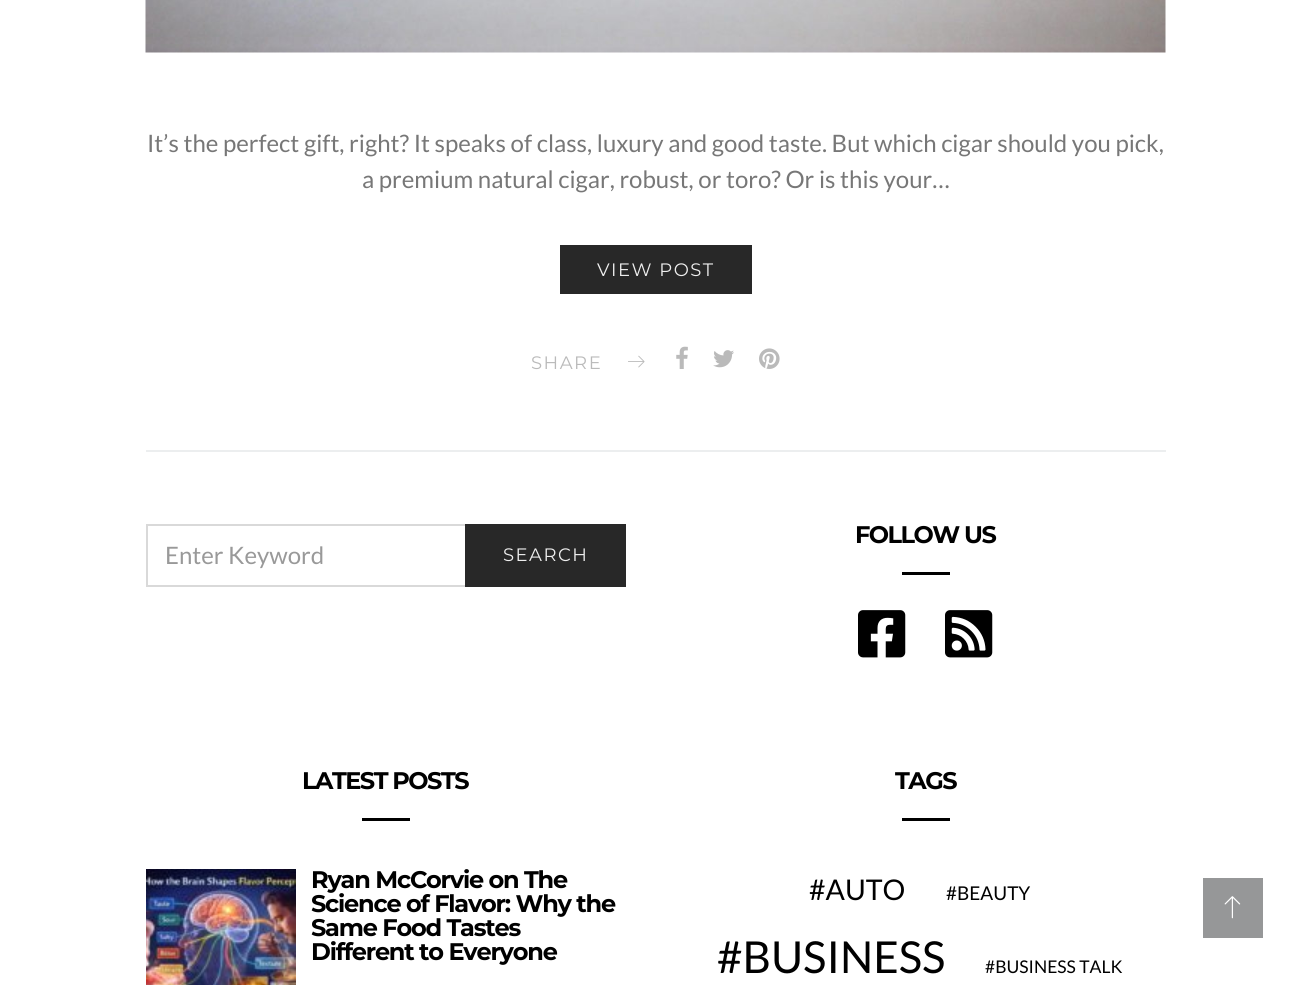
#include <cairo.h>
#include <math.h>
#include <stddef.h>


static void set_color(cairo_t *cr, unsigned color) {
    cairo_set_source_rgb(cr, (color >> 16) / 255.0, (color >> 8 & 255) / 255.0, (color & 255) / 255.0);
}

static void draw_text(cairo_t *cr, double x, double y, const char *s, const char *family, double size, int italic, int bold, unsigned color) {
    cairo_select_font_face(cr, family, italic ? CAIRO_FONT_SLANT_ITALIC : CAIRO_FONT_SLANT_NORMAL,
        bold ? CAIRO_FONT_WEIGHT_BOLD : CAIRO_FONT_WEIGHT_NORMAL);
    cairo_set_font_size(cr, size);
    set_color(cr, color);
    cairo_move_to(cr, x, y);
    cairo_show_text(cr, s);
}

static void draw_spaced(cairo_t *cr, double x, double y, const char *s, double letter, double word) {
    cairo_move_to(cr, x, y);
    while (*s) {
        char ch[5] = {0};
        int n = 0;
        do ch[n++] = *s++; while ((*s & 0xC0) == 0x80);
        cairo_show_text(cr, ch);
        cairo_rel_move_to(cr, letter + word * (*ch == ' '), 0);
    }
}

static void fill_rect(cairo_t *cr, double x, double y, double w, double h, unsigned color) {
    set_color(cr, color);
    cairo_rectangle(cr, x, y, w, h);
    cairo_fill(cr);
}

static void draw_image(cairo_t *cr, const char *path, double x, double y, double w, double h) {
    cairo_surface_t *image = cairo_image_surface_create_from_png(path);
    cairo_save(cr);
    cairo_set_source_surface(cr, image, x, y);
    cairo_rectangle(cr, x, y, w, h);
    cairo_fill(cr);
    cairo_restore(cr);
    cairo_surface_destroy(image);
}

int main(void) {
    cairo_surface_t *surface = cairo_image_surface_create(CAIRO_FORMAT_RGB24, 1311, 985);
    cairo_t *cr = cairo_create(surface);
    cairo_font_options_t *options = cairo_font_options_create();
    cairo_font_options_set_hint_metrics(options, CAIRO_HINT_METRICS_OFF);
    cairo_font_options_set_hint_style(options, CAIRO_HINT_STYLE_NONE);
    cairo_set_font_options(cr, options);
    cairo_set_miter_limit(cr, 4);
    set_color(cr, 0xFFFFFF);
    cairo_paint(cr);
    draw_image(cr, "assets/img1.png", 145, 0, 1021, 53);
    draw_text(cr, 147, 152, "It’s the perfect gift, right? It speaks of class, luxury and good taste. But which cigar should you pick,", "Lato", 24, 0, 0, 0x777777);
    draw_text(cr, 362, 188, "a premium natural cigar, robust, or toro? Or is this your…", "Lato", 24, 0, 0, 0x777777);
    fill_rect(cr, 560, 245, 192, 49, 0x282828);
    cairo_select_font_face(cr, "Montserrat", CAIRO_FONT_SLANT_NORMAL, CAIRO_FONT_WEIGHT_NORMAL);
    cairo_set_font_size(cr, 18);
    set_color(cr, 0xEEEEEE);
    draw_spaced(cr, 597, 276, "VIEW POST", 1.5, 0);
    set_color(cr, 0xBABABA);
    draw_spaced(cr, 531, 369, "SHARE", 1.5, 0);
    draw_image(cr, "assets/img2.png", 628, 355, 17, 13);
    draw_image(cr, "assets/img3.png", 676, 346, 12, 23);
    draw_image(cr, "assets/img4.png", 713, 350, 21, 18);
    draw_image(cr, "assets/img5.png", 759, 348, 21, 21);
    fill_rect(cr, 146, 450, 1020, 2, 0xECEEEF);
    cairo_select_font_face(cr, "Montserrat", CAIRO_FONT_SLANT_NORMAL, CAIRO_FONT_WEIGHT_BOLD);
    cairo_set_font_size(cr, 24);
    set_color(cr, 0x000000);
    draw_spaced(cr, 855, 543, "FOLLOW US", -1.5, 0);
    fill_rect(cr, 902, 572, 48, 3, 0x000000);
    draw_image(cr, "assets/img6.png", 858, 610, 48, 48);
    draw_image(cr, "assets/img7.png", 945, 610, 48, 48);
    cairo_rectangle(cr, 147, 525, 319, 61);
    set_color(cr, 0xD9D9D9);
    cairo_stroke(cr);
    draw_text(cr, 165, 564, "Enter Keyword", "Lato", 24, 0, 0, 0x999999);
    fill_rect(cr, 465, 524, 161, 63, 0x282828);
    cairo_select_font_face(cr, "Montserrat", CAIRO_FONT_SLANT_NORMAL, CAIRO_FONT_WEIGHT_NORMAL);
    cairo_set_font_size(cr, 18);
    set_color(cr, 0xEEEEEE);
    draw_spaced(cr, 503, 561, "SEARCH", 1.5, 0);
    cairo_select_font_face(cr, "Montserrat", CAIRO_FONT_SLANT_NORMAL, CAIRO_FONT_WEIGHT_BOLD);
    cairo_set_font_size(cr, 24);
    set_color(cr, 0x000000);
    draw_spaced(cr, 302, 789, "LATEST POSTS", -1.5, 0);
    fill_rect(cr, 362, 818, 48, 3, 0x000000);
    draw_image(cr, "assets/img8.png", 146, 869, 150, 116);
    draw_spaced(cr, 311, 888, "Ryan McCorvie on The", -1.2, 0);
    draw_spaced(cr, 311, 912, "Science of Flavor: Why the", -1.2, 0);
    draw_spaced(cr, 311, 936, "Same Food Tastes", -1.2, 0);
    draw_spaced(cr, 311, 960, "Different to Everyone", -1.2, 0);
    draw_spaced(cr, 895, 789, "TAGS", -1.5, 0);
    fill_rect(cr, 902, 818, 48, 3, 0x000000);
    draw_text(cr, 809, 900, "#AUTO", "Lato", 28.5, 0, 0, 0x000000);
    draw_text(cr, 946, 900, "#BEAUTY", "Lato", 19, 0, 0, 0x000000);
    draw_text(cr, 717, 973, "#BUSINESS", "Lato", 44, 0, 0, 0x000000);
    draw_text(cr, 985, 973, "#BUSINESS TALK", "Lato", 17.5, 0, 0, 0x000000);
    fill_rect(cr, 1203, 878, 60, 60, 0x969798);
    draw_image(cr, "assets/img9.png", 1224, 896, 17, 23);
    cairo_surface_write_to_png(surface, "output.png");
    cairo_font_options_destroy(options);
    cairo_destroy(cr);
    cairo_surface_destroy(surface);
    return 0;
}
